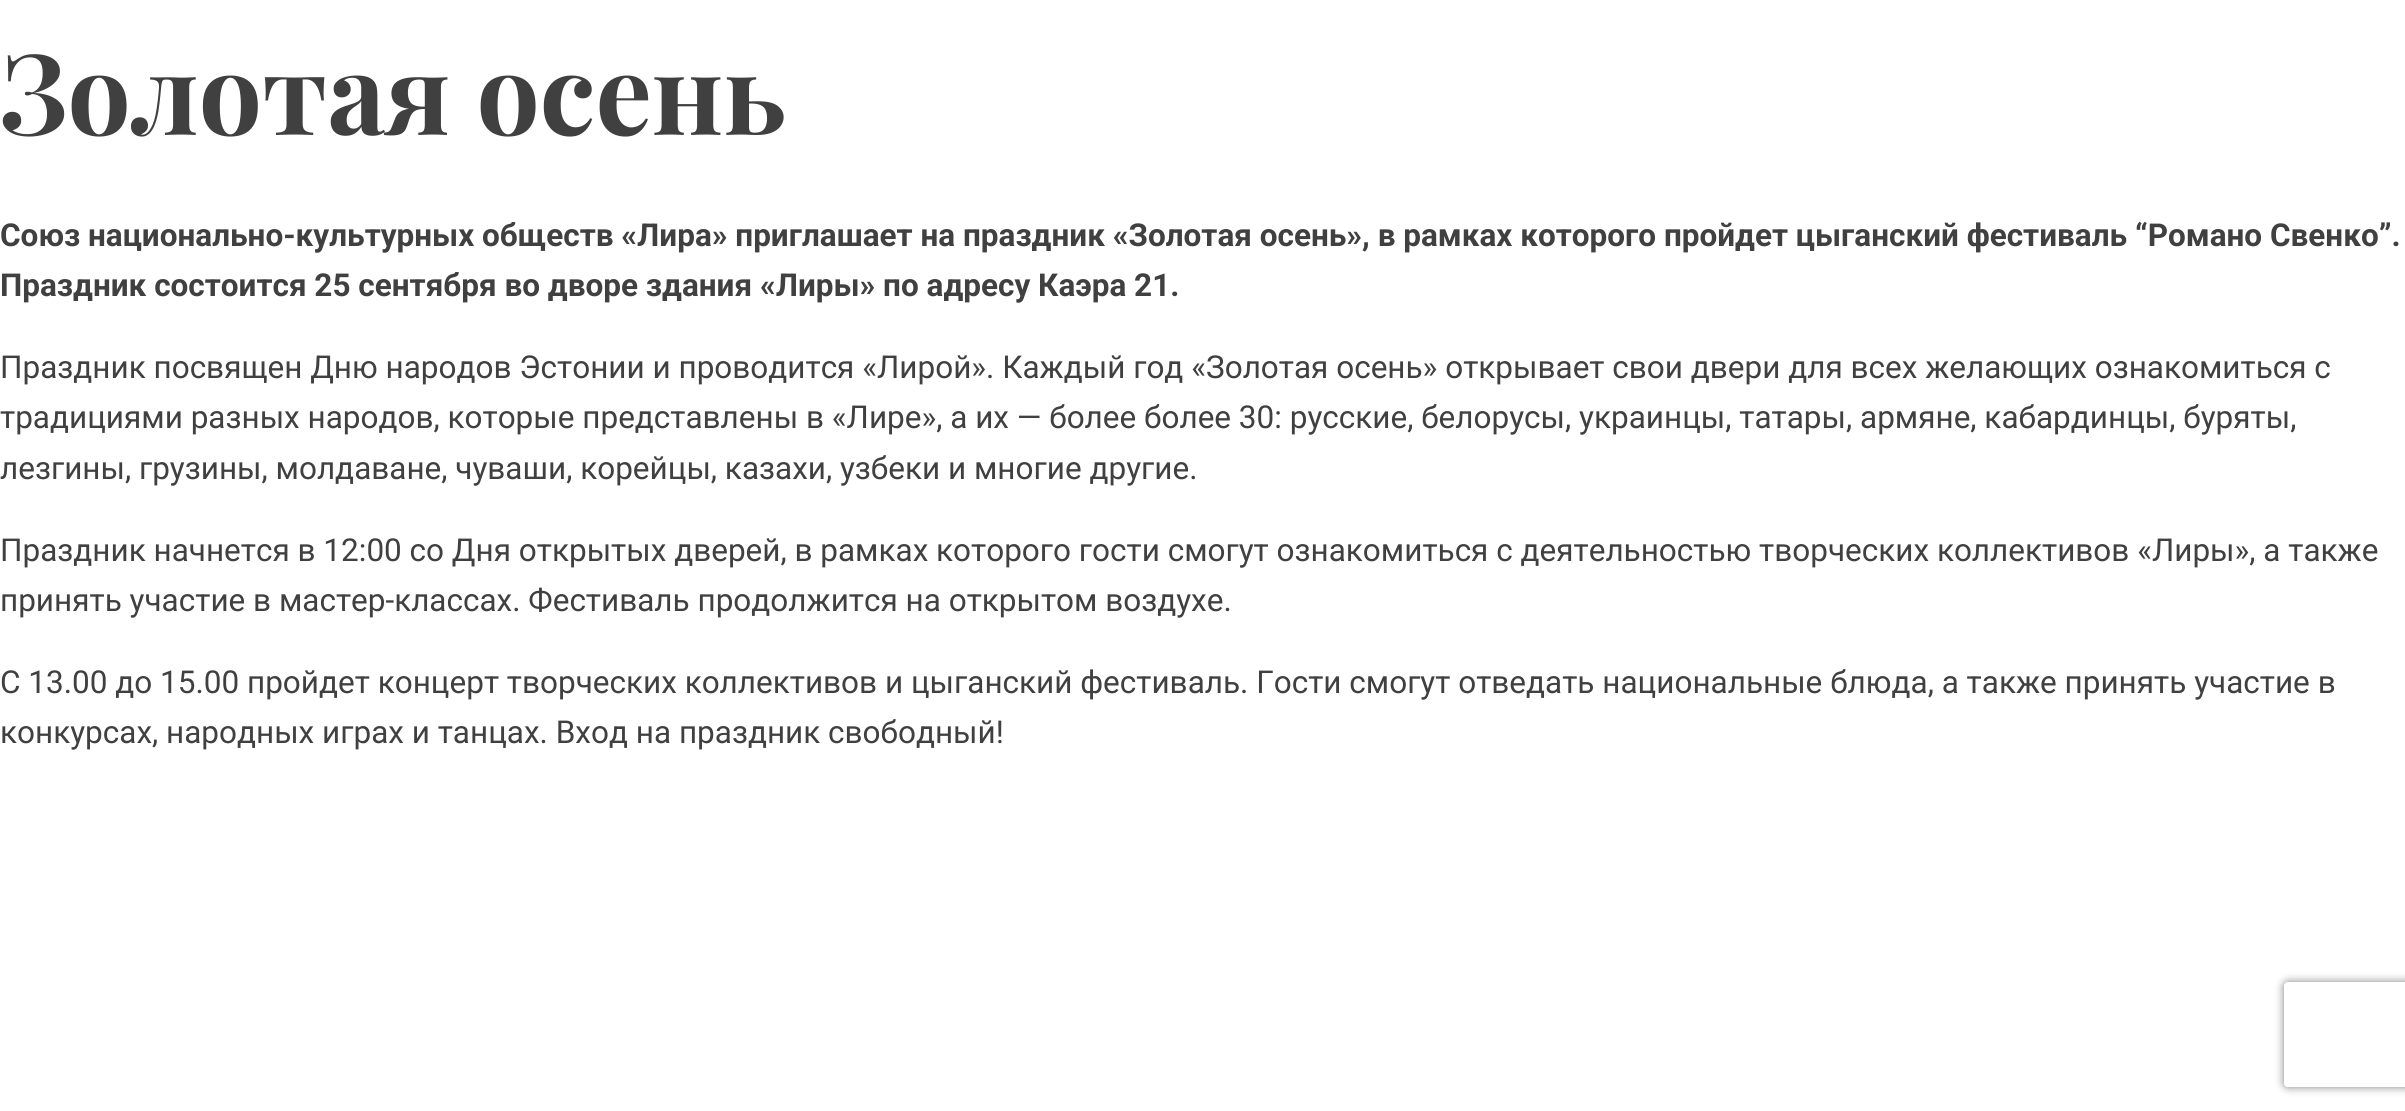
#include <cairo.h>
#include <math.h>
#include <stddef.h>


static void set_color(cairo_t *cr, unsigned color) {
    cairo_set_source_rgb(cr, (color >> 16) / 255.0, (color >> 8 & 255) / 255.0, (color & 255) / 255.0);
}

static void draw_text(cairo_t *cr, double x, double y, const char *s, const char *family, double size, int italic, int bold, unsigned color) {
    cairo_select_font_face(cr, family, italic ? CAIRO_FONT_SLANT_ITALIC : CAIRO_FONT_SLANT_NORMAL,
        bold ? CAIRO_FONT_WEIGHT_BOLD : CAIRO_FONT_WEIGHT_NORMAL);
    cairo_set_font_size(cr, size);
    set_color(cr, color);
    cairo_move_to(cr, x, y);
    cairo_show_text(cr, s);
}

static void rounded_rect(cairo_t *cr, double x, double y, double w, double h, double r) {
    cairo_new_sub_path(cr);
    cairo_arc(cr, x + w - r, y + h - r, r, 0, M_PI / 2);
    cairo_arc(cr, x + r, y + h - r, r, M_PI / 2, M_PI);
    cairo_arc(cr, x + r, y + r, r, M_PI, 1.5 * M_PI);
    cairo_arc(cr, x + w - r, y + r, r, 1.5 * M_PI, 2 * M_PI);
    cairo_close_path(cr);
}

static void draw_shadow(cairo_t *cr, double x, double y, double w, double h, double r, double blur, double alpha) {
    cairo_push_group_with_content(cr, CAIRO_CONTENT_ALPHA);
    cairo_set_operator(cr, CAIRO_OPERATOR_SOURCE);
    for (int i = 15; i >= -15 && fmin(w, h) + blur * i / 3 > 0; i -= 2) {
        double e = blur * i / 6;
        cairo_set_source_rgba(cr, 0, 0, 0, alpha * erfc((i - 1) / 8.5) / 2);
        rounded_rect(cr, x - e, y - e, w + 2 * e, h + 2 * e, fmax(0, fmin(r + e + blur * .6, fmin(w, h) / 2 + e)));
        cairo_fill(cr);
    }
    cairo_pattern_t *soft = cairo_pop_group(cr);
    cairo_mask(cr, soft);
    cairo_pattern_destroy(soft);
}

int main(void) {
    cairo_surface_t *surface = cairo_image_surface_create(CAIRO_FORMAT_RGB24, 2405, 1111);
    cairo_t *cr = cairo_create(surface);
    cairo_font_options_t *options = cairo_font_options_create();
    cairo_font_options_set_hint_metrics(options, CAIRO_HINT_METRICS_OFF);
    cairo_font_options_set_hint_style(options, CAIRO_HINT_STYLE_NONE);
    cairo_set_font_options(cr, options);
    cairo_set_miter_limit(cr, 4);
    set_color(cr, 0xFFFFFF);
    cairo_paint(cr);
    draw_text(cr, 0, 135, "Золотая осень", "Playfair Display", 112, 0, 1, 0x404040);
    draw_text(cr, 0, 246, "Союз национально-культурных обществ «Лира» приглашает на праздник «Золотая осень», в рамках которого пройдет цыганский фестиваль “Романо Свенко”.", "Roboto", 31.5, 0, 1, 0x404040);
    draw_text(cr, 0, 296, "Праздник состоится 25 сентября во дворе здания «Лиры» по адресу Каэра 21.", "Roboto", 31.5, 0, 1, 0x404040);
    draw_text(cr, 0, 378, "Праздник посвящен Дню народов Эстонии и проводится «Лирой». Каждый год «Золотая осень» открывает свои двери для всех желающих ознакомиться с", "Roboto", 31.5, 0, 0, 0x404040);
    draw_text(cr, 0, 428, "традициями разных народов, которые представлены в «Лире», а их — более более 30: русские, белорусы, украинцы, татары, армяне, кабардинцы, буряты,", "Roboto", 31.5, 0, 0, 0x404040);
    draw_text(cr, 0, 479, "лезгины, грузины, молдаване, чуваши, корейцы, казахи, узбеки и многие другие.", "Roboto", 31.5, 0, 0, 0x404040);
    draw_text(cr, 0, 561, "Праздник начнется в 12:00 со Дня открытых дверей, в рамках которого гости смогут ознакомиться с деятельностью творческих коллективов «Лиры», а также", "Roboto", 31.5, 0, 0, 0x404040);
    draw_text(cr, 0, 611, "принять участие в мастер-классах. Фестиваль продолжится на открытом воздухе.", "Roboto", 31.5, 0, 0, 0x404040);
    draw_text(cr, 0, 693, "С 13.00 до 15.00 пройдет концерт творческих коллективов и цыганский фестиваль. Гости смогут отведать национальные блюда, а также принять участие в", "Roboto", 31.5, 0, 0, 0x404040);
    draw_text(cr, 0, 743, "конкурсах, народных играх и танцах. Вход на праздник свободный!", "Roboto", 31.5, 0, 0, 0x404040);
    cairo_save(cr);
    cairo_set_fill_rule(cr, CAIRO_FILL_RULE_EVEN_ODD);
    cairo_new_path(cr);
    cairo_move_to(cr, 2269, 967);
    cairo_line_to(cr, 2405, 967);
    cairo_line_to(cr, 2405, 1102);
    cairo_line_to(cr, 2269, 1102);
    cairo_close_path(cr);
    cairo_move_to(cr, 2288, 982);
    cairo_line_to(cr, 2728, 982);
    cairo_curve_to(cr, 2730, 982, 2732, 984, 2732, 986);
    cairo_line_to(cr, 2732, 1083);
    cairo_curve_to(cr, 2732, 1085, 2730, 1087, 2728, 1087);
    cairo_line_to(cr, 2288, 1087);
    cairo_curve_to(cr, 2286, 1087, 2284, 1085, 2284, 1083);
    cairo_line_to(cr, 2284, 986);
    cairo_curve_to(cr, 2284, 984, 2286, 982, 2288, 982);
    cairo_close_path(cr);
    cairo_clip(cr);
    set_color(cr, 0x808080);
    draw_shadow(cr, 2284, 982, 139, 105, 4, 4.5, 1);
    cairo_restore(cr);
    cairo_surface_write_to_png(surface, "output.png");
    cairo_font_options_destroy(options);
    cairo_destroy(cr);
    cairo_surface_destroy(surface);
    return 0;
}
